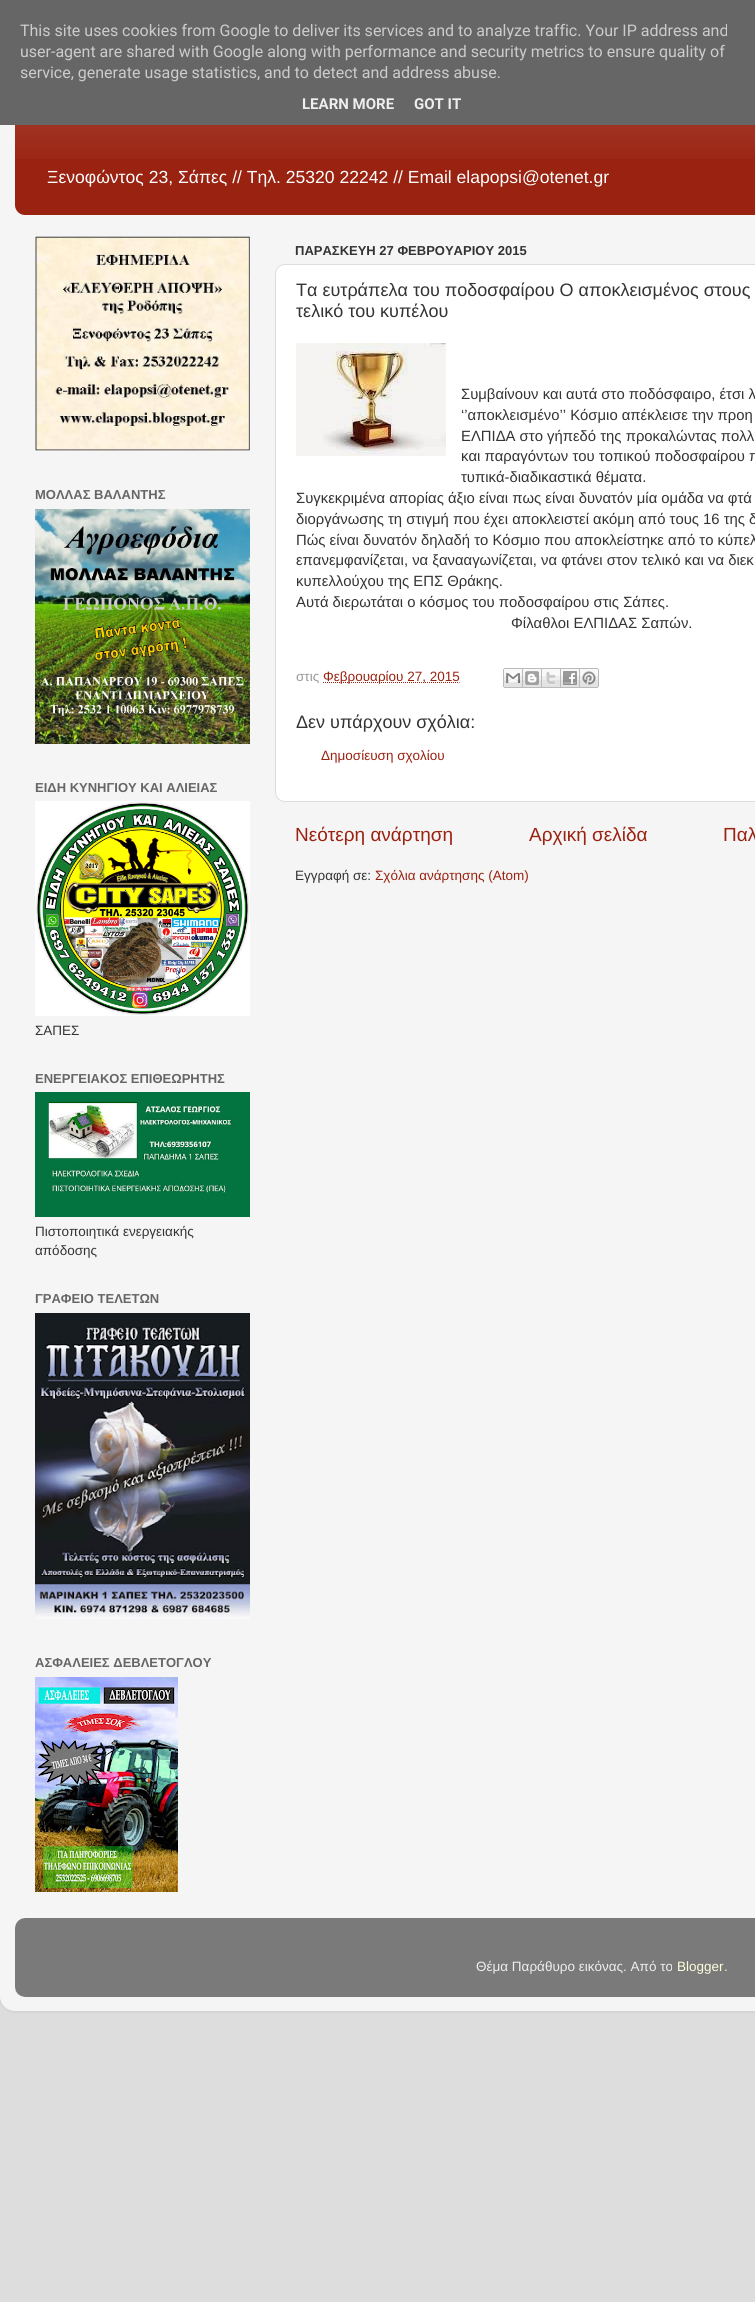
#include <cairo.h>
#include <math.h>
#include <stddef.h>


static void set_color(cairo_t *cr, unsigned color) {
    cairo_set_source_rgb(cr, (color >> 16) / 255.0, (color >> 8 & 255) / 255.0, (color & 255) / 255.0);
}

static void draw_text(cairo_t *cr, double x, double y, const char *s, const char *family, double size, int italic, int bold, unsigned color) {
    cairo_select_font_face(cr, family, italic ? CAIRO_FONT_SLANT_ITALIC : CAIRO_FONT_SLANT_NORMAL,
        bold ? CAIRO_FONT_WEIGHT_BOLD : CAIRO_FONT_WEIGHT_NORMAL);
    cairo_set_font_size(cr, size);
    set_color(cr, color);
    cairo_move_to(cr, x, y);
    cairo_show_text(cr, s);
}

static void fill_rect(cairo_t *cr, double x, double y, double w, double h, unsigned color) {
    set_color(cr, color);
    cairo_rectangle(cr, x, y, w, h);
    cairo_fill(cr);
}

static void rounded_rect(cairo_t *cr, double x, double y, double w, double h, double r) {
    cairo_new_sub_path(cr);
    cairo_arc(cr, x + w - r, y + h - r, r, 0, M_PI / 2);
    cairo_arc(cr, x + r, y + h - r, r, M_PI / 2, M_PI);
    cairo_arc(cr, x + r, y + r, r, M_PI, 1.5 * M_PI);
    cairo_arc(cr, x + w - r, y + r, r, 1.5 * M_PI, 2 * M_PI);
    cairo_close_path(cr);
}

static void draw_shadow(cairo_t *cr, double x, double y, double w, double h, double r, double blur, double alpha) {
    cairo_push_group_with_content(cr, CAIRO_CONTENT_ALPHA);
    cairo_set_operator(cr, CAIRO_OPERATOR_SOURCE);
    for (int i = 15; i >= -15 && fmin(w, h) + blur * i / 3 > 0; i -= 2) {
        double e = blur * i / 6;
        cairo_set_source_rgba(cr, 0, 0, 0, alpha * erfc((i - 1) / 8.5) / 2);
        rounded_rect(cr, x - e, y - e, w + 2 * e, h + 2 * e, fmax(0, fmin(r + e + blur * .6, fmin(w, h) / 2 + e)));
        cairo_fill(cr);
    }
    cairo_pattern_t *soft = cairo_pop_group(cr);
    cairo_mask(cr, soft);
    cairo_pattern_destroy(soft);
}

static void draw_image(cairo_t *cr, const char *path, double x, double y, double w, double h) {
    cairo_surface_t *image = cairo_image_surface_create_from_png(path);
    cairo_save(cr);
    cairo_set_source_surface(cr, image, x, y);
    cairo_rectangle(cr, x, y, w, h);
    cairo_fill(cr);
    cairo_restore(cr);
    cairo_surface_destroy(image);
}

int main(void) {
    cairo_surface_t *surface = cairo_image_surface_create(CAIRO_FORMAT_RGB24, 755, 2302);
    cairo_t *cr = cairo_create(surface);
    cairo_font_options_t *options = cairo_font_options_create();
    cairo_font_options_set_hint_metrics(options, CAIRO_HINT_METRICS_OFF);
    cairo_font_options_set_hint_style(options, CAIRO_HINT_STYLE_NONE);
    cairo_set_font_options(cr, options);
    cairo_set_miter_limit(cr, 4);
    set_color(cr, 0xDDDDDD);
    cairo_paint(cr);
    cairo_save(cr);
    cairo_set_fill_rule(cr, CAIRO_FILL_RULE_EVEN_ODD);
    cairo_new_path(cr);
    cairo_move_to(cr, 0, 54);
    cairo_line_to(cr, 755, 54);
    cairo_line_to(cr, 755, 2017);
    cairo_line_to(cr, 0, 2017);
    cairo_close_path(cr);
    cairo_move_to(cr, 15, 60);
    cairo_line_to(cr, 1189, 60);
    cairo_curve_to(cr, 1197.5, 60, 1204, 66.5, 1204, 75);
    cairo_line_to(cr, 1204, 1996);
    cairo_curve_to(cr, 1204, 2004.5, 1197.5, 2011, 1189, 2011);
    cairo_line_to(cr, 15, 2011);
    cairo_curve_to(cr, 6.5, 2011, 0, 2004.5, 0, 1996);
    cairo_line_to(cr, 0, 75);
    cairo_curve_to(cr, 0, 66.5, 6.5, 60, 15, 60);
    cairo_close_path(cr);
    cairo_clip(cr);
    set_color(cr, 0x000000);
    draw_shadow(cr, 0, 60, 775, 1951, 15, 1.5, 0.15);
    cairo_restore(cr);
    draw_image(cr, "assets/img1.png", 0, 125, 755, 1886);
    set_color(cr, 0x992211);
    rounded_rect(cr, 15, 75, 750, 140, 10);
    cairo_fill(cr);
    fill_rect(cr, 0, 0, 755, 125, 0x666666);
    draw_text(cr, 20, 36, "This site uses cookies from Google to deliver its services and to analyze traffic. Your IP address and", "Roboto", 16, 0, 0, 0xCCCCCC);
    draw_text(cr, 20, 57, "user-agent are shared with Google along with performance and security metrics to ensure quality of", "Roboto", 16, 0, 0, 0xCCCCCC);
    draw_text(cr, 20, 78, "service, generate usage statistics, and to detect and address abuse.", "Roboto", 16, 0, 0, 0xCCCCCC);
    draw_text(cr, 302, 109, "LEARN MORE", "Roboto", 15, 0, 1, 0xEEEEEE);
    draw_text(cr, 414, 109, "GOT IT", "Roboto", 15, 0, 1, 0xEEEEEE);
    draw_image(cr, "assets/img2.png", 15, 125, 740, 34);
    draw_text(cr, 47, 183, "Ξενοφώντος 23, Σάπες // Τηλ. 25320 22242 // Email elapopsi@otenet.gr", "Liberation Sans", 17.55, 0, 0, 0xFFFFFF);
    draw_image(cr, "assets/img3.png", 35, 236, 215, 215);
    draw_text(cr, 35, 499, "ΜΟΛΛΑΣ ΒΑΛΑΝΤΗΣ", "Liberation Sans", 13, 0, 1, 0x666666);
    draw_image(cr, "assets/img4.png", 35, 509, 215, 235);
    draw_text(cr, 35, 792, "ΕΙΔΗ ΚΥΝΗΓΙΟΥ ΚΑΙ ΑΛΙΕΙΑΣ", "Liberation Sans", 13, 0, 1, 0x666666);
    draw_image(cr, "assets/img5.png", 35, 801, 215, 215);
    draw_text(cr, 35, 1035, "ΣΑΠΕΣ", "Liberation Sans", 13.5, 0, 0, 0x333333);
    draw_text(cr, 35, 1083, "ΕΝΕΡΓΕΙΑΚΟΣ ΕΠΙΘΕΩΡΗΤΗΣ", "Liberation Sans", 13, 0, 1, 0x666666);
    draw_image(cr, "assets/img6.png", 35, 1092, 215, 125);
    draw_text(cr, 35, 1236, "Πιστοποιητικά ενεργειακής", "Liberation Sans", 13.5, 0, 0, 0x333333);
    draw_text(cr, 35, 1255, "απόδοσης", "Liberation Sans", 13.5, 0, 0, 0x333333);
    draw_text(cr, 35, 1303, "ΓΡΑΦΕΙΟ ΤΕΛΕΤΩΝ", "Liberation Sans", 13, 0, 1, 0x666666);
    draw_image(cr, "assets/img7.png", 35, 1313, 215, 306);
    draw_text(cr, 35, 1667, "ΑΣΦΑΛΕΙΕΣ ΔΕΒΛΕΤΟΓΛΟΥ", "Liberation Sans", 13, 0, 1, 0x666666);
    draw_image(cr, "assets/img8.png", 35, 1677, 143, 215);
    draw_text(cr, 295, 255, "ΠΑΡΑΣΚΕΥΗ 27 ΦΕΒΡΟΥΑΡΙΟΥ 2015", "Liberation Sans", 13, 0, 1, 0x333333);
    set_color(cr, 0xFFFFFF);
    rounded_rect(cr, 275.5, 264.5, 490, 537, 9.5);
    cairo_fill_preserve(cr);
    set_color(cr, 0xDDDDDD);
    cairo_set_line_width(cr, 1);
    cairo_stroke(cr);
    draw_text(cr, 296, 296, "Τα ευτράπελα του ποδοσφαίρου Ο αποκλεισμένος στους", "Liberation Sans", 18, 0, 0, 0x333333);
    draw_text(cr, 296, 317, "τελικό του κυπέλου", "Liberation Sans", 18, 0, 0, 0x333333);
    draw_image(cr, "assets/img9.png", 296, 343, 150, 113);
    draw_text(cr, 461, 399, "Συμβαίνουν και αυτά στο ποδόσφαιρο, έτσι λ", "Liberation Sans", 14.85, 0, 0, 0x333333);
    draw_text(cr, 461, 420, "‘’αποκλεισμένο’’ Κόσμιο απέκλεισε την προη", "Liberation Sans", 14.85, 0, 0, 0x333333);
    draw_text(cr, 461, 441, "ΕΛΠΙΔΑ στο γήπεδό της προκαλώντας πολλ", "Liberation Sans", 14.85, 0, 0, 0x333333);
    draw_text(cr, 461, 461, "και παραγόντων του τοπικού ποδοσφαίρου π", "Liberation Sans", 14.85, 0, 0, 0x333333);
    draw_text(cr, 461, 482, "τυπικά-διαδικαστικά θέματα.", "Liberation Sans", 14.85, 0, 0, 0x333333);
    draw_text(cr, 296, 503, "Συγκεκριμένα απορίας άξιο είναι πως είναι δυνατόν μία ομάδα να φτά", "Liberation Sans", 14.85, 0, 0, 0x333333);
    draw_text(cr, 296, 524, "διοργάνωσης τη στιγμή που έχει αποκλειστεί ακόμη από τους 16 της δ", "Liberation Sans", 14.85, 0, 0, 0x333333);
    draw_text(cr, 296, 545, "Πώς είναι δυνατόν δηλαδή το Κόσμιο που αποκλείστηκε από το κύπελ", "Liberation Sans", 14.85, 0, 0, 0x333333);
    draw_text(cr, 296, 565, "επανεμφανίζεται, να ξανααγωνίζεται, να φτάνει στον τελικό και να διεκ", "Liberation Sans", 14.85, 0, 0, 0x333333);
    draw_text(cr, 296, 586, "κυπελλούχου της ΕΠΣ Θράκης.", "Liberation Sans", 14.85, 0, 0, 0x333333);
    draw_text(cr, 296, 607, "Αυτά διερωτάται ο κόσμος του ποδοσφαίρου στις Σάπες.", "Liberation Sans", 14.85, 0, 0, 0x333333);
    draw_text(cr, 511, 628, "Φίλαθλοι ΕΛΠΙΔΑΣ Σαπών.", "Liberation Sans", 14.85, 0, 0, 0x333333);
    draw_text(cr, 296, 681, "στις", "Liberation Sans", 13.5, 0, 0, 0x999999);
    cairo_new_path(cr);
    cairo_move_to(cr, 323, 682.5);
    cairo_line_to(cr, 459.5, 682.5);
    set_color(cr, 0x992211);
    cairo_set_dash(cr, (double[]){1, 1}, 2, 0);
    cairo_stroke(cr);
    draw_text(cr, 323, 681, "Φεβρουαρίου 27, 2015", "Liberation Sans", 13.5, 0, 0, 0x992211);
    draw_image(cr, "assets/img10.png", 503, 668, 20, 20);
    draw_image(cr, "assets/img11.png", 523, 668, 19, 20);
    draw_image(cr, "assets/img12.png", 542, 668, 19, 20);
    draw_image(cr, "assets/img13.png", 561, 668, 19, 20);
    draw_image(cr, "assets/img14.png", 580, 668, 19, 20);
    draw_text(cr, 296, 728, "Δεν υπάρχουν σχόλια:", "Liberation Sans", 18, 0, 0, 0x333333);
    draw_text(cr, 321, 760, "Δημοσίευση σχολίου", "Liberation Sans", 13.5, 0, 0, 0x992211);
    draw_text(cr, 295, 841, "Νεότερη ανάρτηση", "Liberation Sans", 19, 0, 0, 0x992211);
    draw_text(cr, 529, 841, "Αρχική σελίδα", "Liberation Sans", 19, 0, 0, 0x992211);
    draw_text(cr, 723, 841, "Παλ", "Liberation Sans", 19, 0, 0, 0x992211);
    draw_text(cr, 295, 880, "Εγγραφή σε:", "Liberation Sans", 13.5, 0, 0, 0x333333);
    draw_text(cr, 375, 880, "Σχόλια ανάρτησης (Atom)", "Liberation Sans", 13.5, 0, 0, 0x992211);
    draw_image(cr, "assets/img15.png", 15, 1918, 740, 79);
    draw_text(cr, 476, 1971, "Θέμα Παράθυρο εικόνας. Από το", "Liberation Sans", 13.5, 0, 0, 0xEEEEEE);
    draw_text(cr, 677, 1971, "Blogger", "Liberation Sans", 13.5, 0, 0, 0xFFFFDD);
    draw_text(cr, 724, 1971, ".", "Liberation Sans", 13.5, 0, 0, 0xEEEEEE);
    cairo_surface_write_to_png(surface, "output.png");
    cairo_font_options_destroy(options);
    cairo_destroy(cr);
    cairo_surface_destroy(surface);
    return 0;
}
